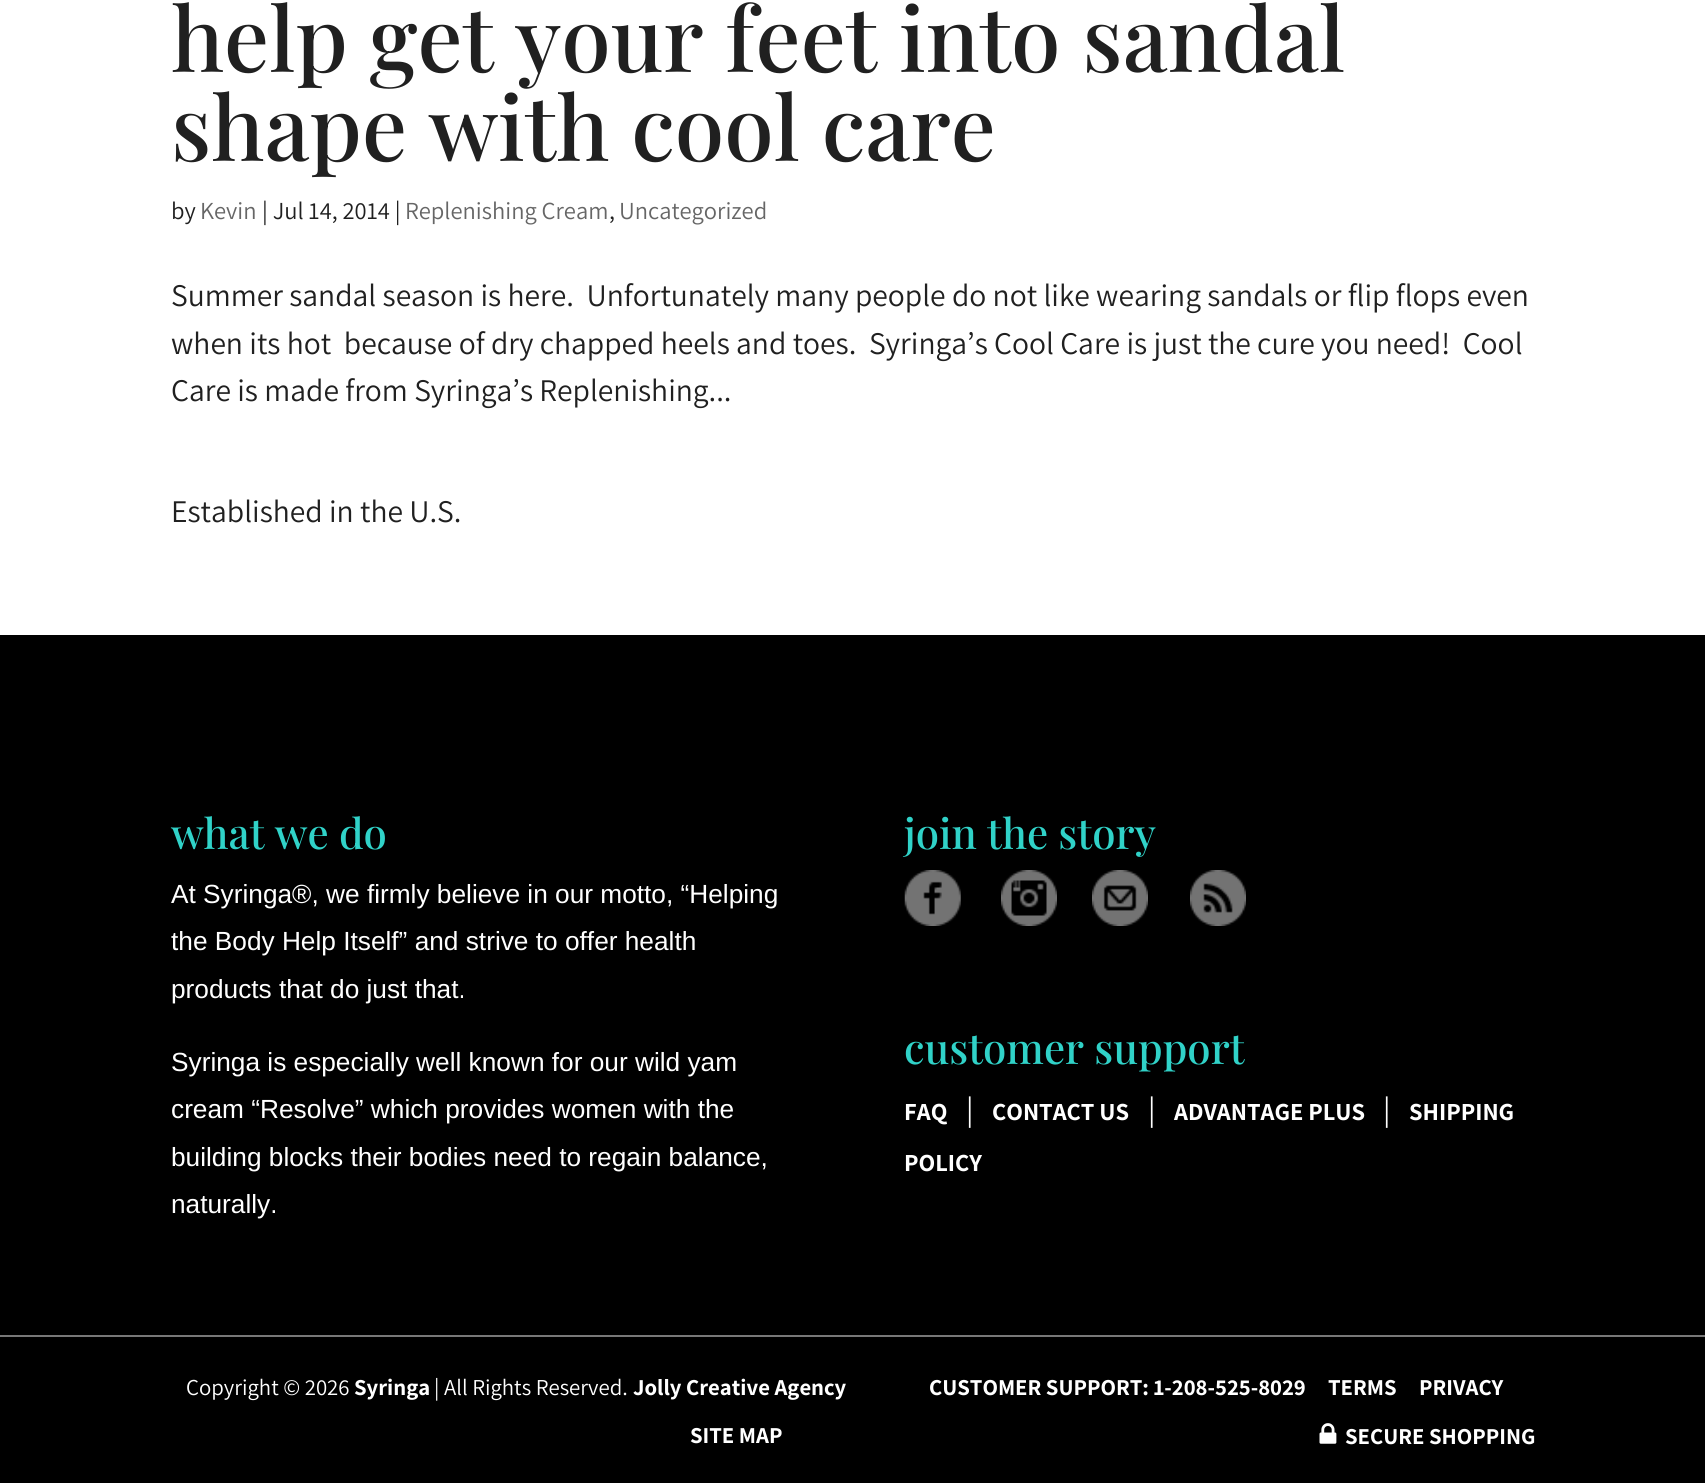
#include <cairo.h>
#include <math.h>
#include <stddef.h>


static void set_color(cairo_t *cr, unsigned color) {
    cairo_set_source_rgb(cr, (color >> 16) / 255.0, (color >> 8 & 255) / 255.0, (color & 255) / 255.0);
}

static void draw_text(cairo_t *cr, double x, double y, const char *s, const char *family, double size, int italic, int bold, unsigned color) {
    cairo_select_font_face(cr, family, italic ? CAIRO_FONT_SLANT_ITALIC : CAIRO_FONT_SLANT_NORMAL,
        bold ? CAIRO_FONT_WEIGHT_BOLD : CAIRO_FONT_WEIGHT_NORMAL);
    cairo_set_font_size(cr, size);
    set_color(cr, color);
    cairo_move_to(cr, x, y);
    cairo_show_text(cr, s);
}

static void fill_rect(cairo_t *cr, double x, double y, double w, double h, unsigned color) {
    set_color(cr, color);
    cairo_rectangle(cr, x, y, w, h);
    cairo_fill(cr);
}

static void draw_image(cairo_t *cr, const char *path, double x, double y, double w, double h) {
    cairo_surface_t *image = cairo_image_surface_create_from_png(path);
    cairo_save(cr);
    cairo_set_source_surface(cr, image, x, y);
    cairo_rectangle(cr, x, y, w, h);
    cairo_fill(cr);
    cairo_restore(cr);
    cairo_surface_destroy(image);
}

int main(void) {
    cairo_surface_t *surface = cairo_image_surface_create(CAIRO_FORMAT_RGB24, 1705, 1483);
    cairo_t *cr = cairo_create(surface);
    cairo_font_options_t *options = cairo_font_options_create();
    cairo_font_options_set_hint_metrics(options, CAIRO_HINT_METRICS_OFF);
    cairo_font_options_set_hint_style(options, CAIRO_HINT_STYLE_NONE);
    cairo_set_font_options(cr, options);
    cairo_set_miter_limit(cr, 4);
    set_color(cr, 0xFFFFFF);
    cairo_paint(cr);
    draw_text(cr, 171, 72, "help get your feet into sandal", "Playfair Display Medium", 89.25, 0, 0, 0x202020);
    draw_text(cr, 171, 161, "shape with cool care", "Playfair Display Medium", 89.25, 0, 0, 0x202020);
    draw_text(cr, 171, 219, "by", "Assistant", 24.5, 0, 0, 0x202020);
    draw_text(cr, 200, 219, "Kevin", "Assistant", 24.5, 0, 0, 0x666666);
    draw_text(cr, 262, 219, "| Jul 14, 2014 |", "Assistant", 24.5, 0, 0, 0x202020);
    draw_text(cr, 405, 219, "Replenishing Cream", "Assistant", 24.5, 0, 0, 0x666666);
    draw_text(cr, 609, 219, ",", "Assistant", 24.5, 0, 0, 0x202020);
    draw_text(cr, 619, 219, "Uncategorized", "Assistant", 24.5, 0, 0, 0x666666);
    draw_text(cr, 171, 306, "Summer sandal season is here.  Unfortunately many people do not like wearing sandals or flip flops even", "Assistant", 31.5, 0, 0, 0x202020);
    draw_text(cr, 171, 354, "when its hot  because of dry chapped heels and toes.  Syringa’s Cool Care is just the cure you need!  Cool", "Assistant", 31.5, 0, 0, 0x202020);
    draw_text(cr, 171, 401, "Care is made from Syringa’s Replenishing...", "Assistant", 31.5, 0, 0, 0x202020);
    draw_text(cr, 171, 522, "Established in the U.S.", "Assistant", 31.5, 0, 0, 0x202020);
    fill_rect(cr, 0, 635, 1705, 848, 0x000000);
    draw_text(cr, 171, 849, "what we do", "Playfair Display Medium", 42, 0, 0, 0x30D2C8);
    draw_text(cr, 171, 903, "At Syringa®, we firmly believe in our motto, “Helping", "Liberation Sans", 26.25, 0, 0, 0xFFFFFF);
    draw_text(cr, 171, 950, "the Body Help Itself” and strive to offer health", "Liberation Sans", 26.25, 0, 0, 0xFFFFFF);
    draw_text(cr, 171, 998, "products that do just that.", "Liberation Sans", 26.25, 0, 0, 0xFFFFFF);
    draw_text(cr, 171, 1071, "Syringa is especially well known for our wild yam", "Liberation Sans", 26.25, 0, 0, 0xFFFFFF);
    draw_text(cr, 171, 1118, "cream “Resolve” which provides women with the", "Liberation Sans", 26.25, 0, 0, 0xFFFFFF);
    draw_text(cr, 171, 1166, "building blocks their bodies need to regain balance,", "Liberation Sans", 26.25, 0, 0, 0xFFFFFF);
    draw_text(cr, 171, 1213, "naturally.", "Liberation Sans", 26.25, 0, 0, 0xFFFFFF);
    draw_text(cr, 904, 849, "join the story", "Playfair Display Medium", 42, 0, 0, 0x30D2C8);
    draw_image(cr, "assets/img1.png", 904, 870, 57, 56);
    draw_image(cr, "assets/img2.png", 1001, 870, 56, 56);
    draw_image(cr, "assets/img3.png", 1092, 870, 56, 56);
    draw_image(cr, "assets/img4.png", 1190, 870, 56, 56);
    draw_text(cr, 904, 1064, "customer support", "Playfair Display Medium", 42, 0, 0, 0x30D2C8);
    draw_text(cr, 904, 1120, "FAQ", "Assistant", 24.5, 0, 1, 0xFFFFFF);
    draw_text(cr, 966, 1120, "|", "Assistant", 31.5, 0, 0, 0xFFFFFF);
    draw_text(cr, 992, 1120, "CONTACT US", "Assistant", 24.5, 0, 1, 0xFFFFFF);
    draw_text(cr, 1148, 1120, "|", "Assistant", 31.5, 0, 0, 0xFFFFFF);
    draw_text(cr, 1174, 1120, "ADVANTAGE PLUS", "Assistant", 24.5, 0, 1, 0xFFFFFF);
    draw_text(cr, 1383, 1120, "|", "Assistant", 31.5, 0, 0, 0xFFFFFF);
    draw_text(cr, 1409, 1120, "SHIPPING", "Assistant", 24.5, 0, 1, 0xFFFFFF);
    draw_text(cr, 904, 1171, "POLICY", "Assistant", 24.5, 0, 1, 0xFFFFFF);
    fill_rect(cr, 0, 1335, 1705, 2, 0x777777);
    draw_text(cr, 186, 1395, "Copyright © 2026", "Assistant", 22.75, 0, 0, 0xFFFFFF);
    draw_text(cr, 354, 1395, "Syringa", "Assistant", 22.75, 0, 1, 0xFFFFFF);
    draw_text(cr, 434, 1395, "| All Rights Reserved.", "Assistant", 22.75, 0, 0, 0xFFFFFF);
    draw_text(cr, 633, 1395, "Jolly Creative Agency", "Assistant", 22.75, 0, 1, 0xFFFFFF);
    draw_text(cr, 929, 1395, "CUSTOMER SUPPORT: 1-208-525-8029", "Assistant", 22.75, 0, 1, 0xFFFFFF);
    draw_text(cr, 1328, 1395, "TERMS", "Assistant", 22.75, 0, 1, 0xFFFFFF);
    draw_text(cr, 1419, 1395, "PRIVACY", "Assistant", 22.75, 0, 1, 0xFFFFFF);
    draw_text(cr, 690, 1443, "SITE MAP", "Assistant", 22.75, 0, 1, 0xFFFFFF);
    draw_image(cr, "assets/img5.png", 1319, 1423, 18, 21);
    draw_text(cr, 1345, 1444, "SECURE SHOPPING", "Assistant", 22.75, 0, 1, 0xFFFFFF);
    cairo_surface_write_to_png(surface, "output.png");
    cairo_font_options_destroy(options);
    cairo_destroy(cr);
    cairo_surface_destroy(surface);
    return 0;
}
